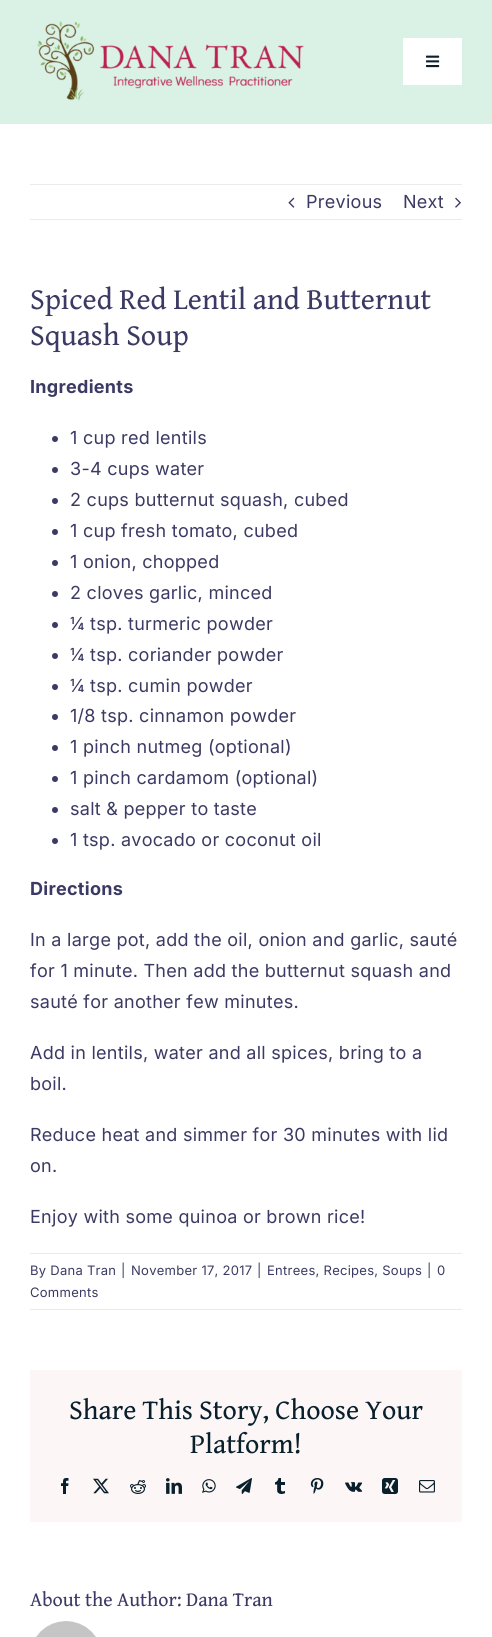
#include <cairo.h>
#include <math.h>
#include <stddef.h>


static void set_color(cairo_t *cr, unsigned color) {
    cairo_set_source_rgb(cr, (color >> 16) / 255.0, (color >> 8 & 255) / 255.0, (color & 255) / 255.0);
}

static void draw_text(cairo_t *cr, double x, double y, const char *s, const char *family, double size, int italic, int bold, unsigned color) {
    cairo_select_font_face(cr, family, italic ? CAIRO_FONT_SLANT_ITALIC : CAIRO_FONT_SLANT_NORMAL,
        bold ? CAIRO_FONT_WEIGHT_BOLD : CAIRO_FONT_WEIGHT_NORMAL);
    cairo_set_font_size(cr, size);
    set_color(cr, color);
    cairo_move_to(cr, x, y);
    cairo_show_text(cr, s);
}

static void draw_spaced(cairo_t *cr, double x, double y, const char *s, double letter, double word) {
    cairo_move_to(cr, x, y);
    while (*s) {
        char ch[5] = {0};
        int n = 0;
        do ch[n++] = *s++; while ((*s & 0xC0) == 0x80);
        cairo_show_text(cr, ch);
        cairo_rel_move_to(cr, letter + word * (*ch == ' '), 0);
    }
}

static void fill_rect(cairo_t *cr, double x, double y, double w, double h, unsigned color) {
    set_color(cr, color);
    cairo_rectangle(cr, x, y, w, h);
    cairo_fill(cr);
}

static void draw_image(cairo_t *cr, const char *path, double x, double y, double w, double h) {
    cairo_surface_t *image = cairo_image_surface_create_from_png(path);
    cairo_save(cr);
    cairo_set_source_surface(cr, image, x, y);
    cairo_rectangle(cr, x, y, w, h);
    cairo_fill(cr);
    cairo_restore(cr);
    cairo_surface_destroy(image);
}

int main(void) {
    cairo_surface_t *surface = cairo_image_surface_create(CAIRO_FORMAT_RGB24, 492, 1637);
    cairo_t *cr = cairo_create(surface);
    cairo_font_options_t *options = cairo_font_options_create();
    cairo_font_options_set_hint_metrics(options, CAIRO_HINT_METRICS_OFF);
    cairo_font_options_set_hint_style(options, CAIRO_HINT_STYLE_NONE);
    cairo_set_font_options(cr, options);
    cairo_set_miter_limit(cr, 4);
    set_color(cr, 0xFFFFFF);
    cairo_paint(cr);
    fill_rect(cr, 0, 0, 492, 124, 0xDAF2E6);
    draw_image(cr, "assets/img1.png", 37, 21, 267, 80);
    fill_rect(cr, 403, 38, 59, 47, 0xFFFFFF);
    draw_image(cr, "assets/img2.png", 426, 55, 14, 13);
    fill_rect(cr, 30, 184, 432, 1, 0xEBEBEB);
    fill_rect(cr, 30, 219, 432, 1, 0xEBEBEB);
    draw_image(cr, "assets/img3.png", 288, 197, 7, 11);
    cairo_select_font_face(cr, "Inter", CAIRO_FONT_SLANT_NORMAL, CAIRO_FONT_WEIGHT_NORMAL);
    cairo_set_font_size(cr, 18);
    set_color(cr, 0x3B3A64);
    draw_spaced(cr, 306, 208, "Previous", 0.27, 0);
    draw_spaced(cr, 403, 208, "Next", 0.27, 0);
    draw_image(cr, "assets/img4.png", 455, 197, 6, 11);
    draw_text(cr, 30, 309, "Spiced Red Lentil and Butternut", "Gentium Book Plus", 30, 0, 0, 0x3B3A64);
    draw_text(cr, 30, 345, "Squash Soup", "Gentium Book Plus", 30, 0, 0, 0x3B3A64);
    cairo_select_font_face(cr, "Inter", CAIRO_FONT_SLANT_NORMAL, CAIRO_FONT_WEIGHT_BOLD);
    cairo_set_font_size(cr, 18);
    draw_spaced(cr, 30, 393, "Ingredients", 0.27, 0);
    cairo_new_path(cr);
    cairo_arc(cr, 55, 439, 3, 0, 2 * M_PI);
    cairo_fill(cr);
    cairo_select_font_face(cr, "Inter", CAIRO_FONT_SLANT_NORMAL, CAIRO_FONT_WEIGHT_NORMAL);
    draw_spaced(cr, 70, 444, "1 cup red lentils", 0.27, 0);
    cairo_new_path(cr);
    cairo_arc(cr, 55, 470, 3, 0, 2 * M_PI);
    cairo_fill(cr);
    draw_spaced(cr, 70, 475, "3-4 cups water", 0.27, 0);
    cairo_new_path(cr);
    cairo_arc(cr, 55, 501, 3, 0, 2 * M_PI);
    cairo_fill(cr);
    draw_spaced(cr, 70, 506, "2 cups butternut squash, cubed", 0.27, 0);
    cairo_new_path(cr);
    cairo_arc(cr, 55, 532, 3, 0, 2 * M_PI);
    cairo_fill(cr);
    draw_spaced(cr, 70, 537, "1 cup fresh tomato, cubed", 0.27, 0);
    cairo_new_path(cr);
    cairo_arc(cr, 55, 563, 3, 0, 2 * M_PI);
    cairo_fill(cr);
    draw_spaced(cr, 70, 568, "1 onion, chopped", 0.27, 0);
    cairo_new_path(cr);
    cairo_arc(cr, 55, 594, 3, 0, 2 * M_PI);
    cairo_fill(cr);
    draw_spaced(cr, 70, 599, "2 cloves garlic, minced", 0.27, 0);
    cairo_new_path(cr);
    cairo_arc(cr, 55, 625, 3, 0, 2 * M_PI);
    cairo_fill(cr);
    draw_spaced(cr, 70, 630, "¼ tsp. turmeric powder", 0.27, 0);
    cairo_new_path(cr);
    cairo_arc(cr, 55, 656, 3, 0, 2 * M_PI);
    cairo_fill(cr);
    draw_spaced(cr, 70, 661, "¼ tsp. coriander powder", 0.27, 0);
    cairo_new_path(cr);
    cairo_arc(cr, 55, 687, 3, 0, 2 * M_PI);
    cairo_fill(cr);
    draw_spaced(cr, 70, 692, "¼ tsp. cumin powder", 0.27, 0);
    cairo_new_path(cr);
    cairo_arc(cr, 55, 717, 3, 0, 2 * M_PI);
    cairo_fill(cr);
    draw_spaced(cr, 70, 722, "1/8 tsp. cinnamon powder", 0.27, 0);
    cairo_new_path(cr);
    cairo_arc(cr, 55, 748, 3, 0, 2 * M_PI);
    cairo_fill(cr);
    draw_spaced(cr, 70, 753, "1 pinch nutmeg (optional)", 0.27, 0);
    cairo_new_path(cr);
    cairo_arc(cr, 55, 779, 3, 0, 2 * M_PI);
    cairo_fill(cr);
    draw_spaced(cr, 70, 784, "1 pinch cardamom (optional)", 0.27, 0);
    cairo_new_path(cr);
    cairo_arc(cr, 55, 810, 3, 0, 2 * M_PI);
    cairo_fill(cr);
    draw_spaced(cr, 70, 815, "salt & pepper to taste", 0.27, 0);
    cairo_new_path(cr);
    cairo_arc(cr, 55, 841, 3, 0, 2 * M_PI);
    cairo_fill(cr);
    draw_spaced(cr, 70, 846, "1 tsp. avocado or coconut oil", 0.27, 0);
    cairo_select_font_face(cr, "Inter", CAIRO_FONT_SLANT_NORMAL, CAIRO_FONT_WEIGHT_BOLD);
    draw_spaced(cr, 30, 895, "Directions", 0.27, 0);
    cairo_select_font_face(cr, "Inter", CAIRO_FONT_SLANT_NORMAL, CAIRO_FONT_WEIGHT_NORMAL);
    draw_spaced(cr, 30, 946, "In a large pot, add the oil, onion and garlic, sauté", 0.27, 0);
    draw_spaced(cr, 30, 977, "for 1 minute. Then add the butternut squash and", 0.27, 0);
    draw_spaced(cr, 30, 1008, "sauté for another few minutes.", 0.27, 0);
    draw_spaced(cr, 30, 1059, "Add in lentils, water and all spices, bring to a", 0.27, 0);
    draw_spaced(cr, 30, 1090, "boil.", 0.27, 0);
    draw_spaced(cr, 30, 1141, "Reduce heat and simmer for 30 minutes with lid", 0.27, 0);
    draw_spaced(cr, 30, 1172, "on.", 0.27, 0);
    draw_spaced(cr, 30, 1223, "Enjoy with some quinoa or brown rice!", 0.27, 0);
    fill_rect(cr, 30, 1253, 432, 1, 0xEBEBEB);
    fill_rect(cr, 30, 1309, 432, 1, 0xEBEBEB);
    cairo_set_font_size(cr, 13);
    set_color(cr, 0x3B3A64);
    draw_spaced(cr, 30, 1275, "By Dana Tran", 0.27, 0);
    draw_spaced(cr, 121, 1275, "|", 0.27, 0);
    draw_spaced(cr, 131, 1275, "November 17, 2017", 0.27, 0);
    draw_spaced(cr, 257, 1275, "|", 0.27, 0);
    draw_spaced(cr, 267, 1275, "Entrees, Recipes, Soups", 0.27, 0);
    draw_spaced(cr, 427, 1275, "|", 0.27, 0);
    draw_spaced(cr, 437, 1275, "0", 0.27, 0);
    draw_spaced(cr, 30, 1297, "Comments", 0.27, 0);
    fill_rect(cr, 30, 1370, 432, 152, 0xFCF7F6);
    draw_text(cr, 69, 1419, "Share This Story, Choose Your", "Gentium Book Plus", 28, 0, 0, 0x09202C);
    draw_text(cr, 190, 1453, "Platform!", "Gentium Book Plus", 28, 0, 0, 0x09202C);
    draw_image(cr, "assets/img5.png", 61, 1478, 8, 16);
    draw_image(cr, "assets/img6.png", 93, 1478, 16, 16);
    draw_image(cr, "assets/img7.png", 130, 1480, 16, 14);
    draw_image(cr, "assets/img8.png", 166, 1478, 16, 16);
    draw_image(cr, "assets/img9.png", 202, 1479, 14, 14);
    draw_image(cr, "assets/img10.png", 236, 1478, 16, 16);
    draw_image(cr, "assets/img11.png", 275, 1478, 10, 16);
    draw_image(cr, "assets/img12.png", 310, 1478, 14, 16);
    draw_image(cr, "assets/img13.png", 345, 1482, 18, 10);
    draw_image(cr, "assets/img14.png", 382, 1478, 16, 16);
    draw_image(cr, "assets/img15.png", 419, 1480, 16, 13);
    draw_text(cr, 30, 1606, "About the Author: Dana Tran", "Gentium Book Plus", 20, 0, 0, 0x3B3A64);
    draw_image(cr, "assets/img16.png", 36, 1621, 60, 16);
    cairo_surface_write_to_png(surface, "output.png");
    cairo_font_options_destroy(options);
    cairo_destroy(cr);
    cairo_surface_destroy(surface);
    return 0;
}
